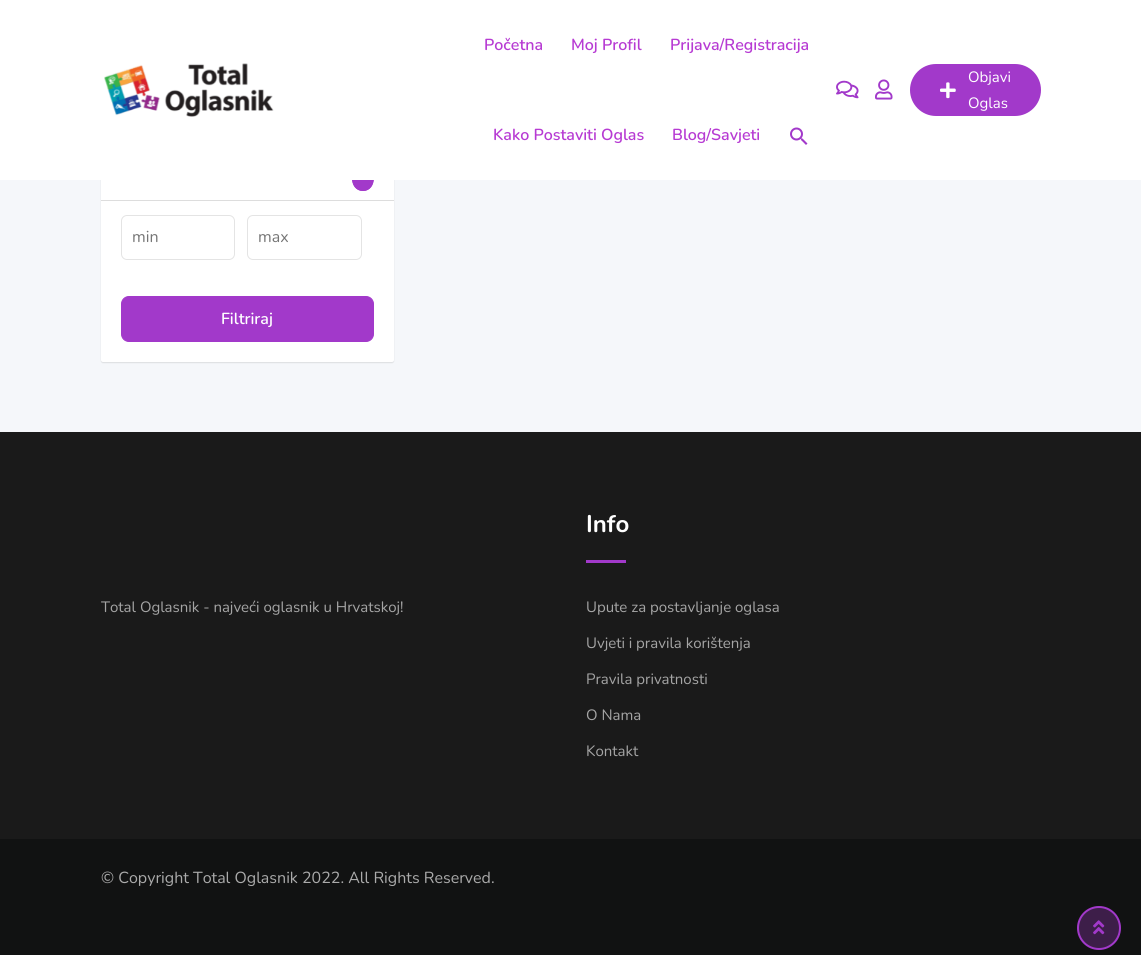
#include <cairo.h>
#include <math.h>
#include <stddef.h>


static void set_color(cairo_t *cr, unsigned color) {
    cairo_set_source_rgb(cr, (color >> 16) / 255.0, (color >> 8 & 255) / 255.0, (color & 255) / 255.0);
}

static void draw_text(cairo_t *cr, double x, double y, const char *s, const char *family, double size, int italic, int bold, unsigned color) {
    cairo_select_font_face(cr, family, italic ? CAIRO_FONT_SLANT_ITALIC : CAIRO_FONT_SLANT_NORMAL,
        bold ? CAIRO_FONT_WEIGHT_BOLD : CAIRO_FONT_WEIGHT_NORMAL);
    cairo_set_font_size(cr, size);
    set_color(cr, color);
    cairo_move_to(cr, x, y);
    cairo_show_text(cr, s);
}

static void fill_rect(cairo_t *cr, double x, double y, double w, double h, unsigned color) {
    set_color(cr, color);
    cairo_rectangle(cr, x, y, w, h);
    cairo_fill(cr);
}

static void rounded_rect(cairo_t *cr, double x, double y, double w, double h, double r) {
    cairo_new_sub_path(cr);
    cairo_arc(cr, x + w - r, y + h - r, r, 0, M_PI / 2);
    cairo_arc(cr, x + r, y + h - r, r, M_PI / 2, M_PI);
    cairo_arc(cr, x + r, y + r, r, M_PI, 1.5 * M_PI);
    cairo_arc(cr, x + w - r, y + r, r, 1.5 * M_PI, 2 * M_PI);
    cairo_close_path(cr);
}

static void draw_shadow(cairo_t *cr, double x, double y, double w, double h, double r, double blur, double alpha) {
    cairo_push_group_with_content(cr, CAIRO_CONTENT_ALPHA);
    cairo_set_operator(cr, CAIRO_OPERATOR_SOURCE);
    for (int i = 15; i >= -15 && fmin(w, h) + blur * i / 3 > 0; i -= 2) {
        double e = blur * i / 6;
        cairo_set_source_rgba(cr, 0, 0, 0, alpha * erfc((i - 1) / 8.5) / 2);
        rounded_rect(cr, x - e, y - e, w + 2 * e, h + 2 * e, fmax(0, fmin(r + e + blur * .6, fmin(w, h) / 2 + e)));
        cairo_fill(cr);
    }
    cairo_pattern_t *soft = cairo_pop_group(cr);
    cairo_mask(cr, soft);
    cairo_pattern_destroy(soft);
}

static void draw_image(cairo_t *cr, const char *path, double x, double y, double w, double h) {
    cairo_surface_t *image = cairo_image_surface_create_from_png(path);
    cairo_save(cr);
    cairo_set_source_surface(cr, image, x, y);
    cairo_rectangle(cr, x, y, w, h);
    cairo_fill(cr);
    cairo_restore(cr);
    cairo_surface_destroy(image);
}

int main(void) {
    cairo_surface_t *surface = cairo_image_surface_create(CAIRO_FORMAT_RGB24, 1141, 955);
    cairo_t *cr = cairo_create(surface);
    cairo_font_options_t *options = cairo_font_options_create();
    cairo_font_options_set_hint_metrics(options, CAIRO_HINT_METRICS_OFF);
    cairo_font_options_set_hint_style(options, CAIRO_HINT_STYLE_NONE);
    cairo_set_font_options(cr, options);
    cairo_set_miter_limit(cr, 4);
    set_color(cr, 0xF5F7FA);
    cairo_paint(cr);
    set_color(cr, 0x000000);
    draw_shadow(cr, 101, -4, 293, 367, 2, 0.5, 0.1);
    set_color(cr, 0xFFFFFF);
    rounded_rect(cr, 101, -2, 293, 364, 2);
    cairo_fill(cr);
    set_color(cr, 0xA239CA);
    cairo_new_path(cr);
    cairo_move_to(cr, 363, 191);
    cairo_curve_to(cr, 348.5, 191, 348.5, 166, 363, 166);
    cairo_curve_to(cr, 377.5, 166, 377.5, 191, 363, 191);
    cairo_close_path(cr);
    cairo_fill(cr);
    cairo_new_path(cr);
    cairo_move_to(cr, 363, 190.5);
    cairo_curve_to(cr, 349, 190.5, 349, 166.5, 363, 166.5);
    cairo_curve_to(cr, 376.5, 166.5, 376.5, 190.5, 363, 190.5);
    cairo_close_path(cr);
    cairo_set_line_width(cr, 1);
    cairo_stroke(cr);
    fill_rect(cr, 0, 0, 1141, 180, 0xFFFFFF);
    draw_image(cr, "assets/img1.png", 104, 63, 170, 54);
    draw_text(cr, 484, 50, "Početna", "Nunito SemiBold", 16, 0, 0, 0xB73BD3);
    draw_text(cr, 571, 50, "Moj Profil", "Nunito SemiBold", 16, 0, 0, 0xB73BD3);
    draw_text(cr, 670, 50, "Prijava/Registracija", "Nunito SemiBold", 16, 0, 0, 0xB73BD3);
    draw_text(cr, 493, 140, "Kako Postaviti Oglas", "Nunito SemiBold", 16, 0, 0, 0xB73BD3);
    draw_text(cr, 672, 140, "Blog/Savjeti", "Nunito SemiBold", 16, 0, 0, 0xB73BD3);
    draw_image(cr, "assets/img2.png", 790, 127, 18, 18);
    draw_image(cr, "assets/img3.png", 836, 80, 23, 19);
    draw_image(cr, "assets/img4.png", 875, 79, 18, 21);
    set_color(cr, 0xA239CA);
    rounded_rect(cr, 910, 64, 131, 52, 26);
    cairo_fill(cr);
    draw_text(cr, 968, 82, "Objavi", "Nunito", 15, 0, 0, 0xFFFFFF);
    draw_image(cr, "assets/img5.png", 940, 82, 16, 17);
    draw_text(cr, 968, 108, "Oglas", "Nunito", 15, 0, 0, 0xFFFFFF);
    fill_rect(cr, 101, 200, 293, 1, 0xDDDDDD);
    rounded_rect(cr, 121.5, 215.5, 113, 44, 5.5);
    set_color(cr, 0xE4E4E4);
    cairo_stroke(cr);
    draw_text(cr, 132, 242, "min", "Nunito", 16, 0, 0, 0x757575);
    rounded_rect(cr, 247.5, 215.5, 114, 44, 5.5);
    set_color(cr, 0xE4E4E4);
    cairo_stroke(cr);
    draw_text(cr, 258, 242, "max", "Nunito", 16, 0, 0, 0x757575);
    set_color(cr, 0xA239CA);
    rounded_rect(cr, 121.5, 296.5, 252, 45, 7.5);
    cairo_fill_preserve(cr);
    cairo_stroke(cr);
    draw_text(cr, 221, 324, "Filtriraj", "Nunito SemiBold", 16, 0, 0, 0xFFFFFF);
    fill_rect(cr, 0, 432, 1141, 407, 0x1A1A1A);
    draw_text(cr, 101, 612, "Total Oglasnik - najveći oglasnik u Hrvatskoj!", "Nunito", 15, 0, 0, 0xA5A5A5);
    draw_text(cr, 586, 532, "Info", "Nunito", 24, 0, 1, 0xFFFFFF);
    fill_rect(cr, 586, 560, 40, 3, 0xA239CA);
    draw_text(cr, 586, 612, "Upute za postavljanje oglasa", "Nunito", 15, 0, 0, 0xA5A5A5);
    draw_text(cr, 586, 648, "Uvjeti i pravila korištenja", "Nunito", 15, 0, 0, 0xA5A5A5);
    draw_text(cr, 586, 684, "Pravila privatnosti", "Nunito", 15, 0, 0, 0xA5A5A5);
    draw_text(cr, 586, 720, "O Nama", "Nunito", 15, 0, 0, 0xA5A5A5);
    draw_text(cr, 586, 756, "Kontakt", "Nunito", 15, 0, 0, 0xA5A5A5);
    fill_rect(cr, 0, 839, 1141, 116, 0x111212);
    draw_text(cr, 101, 883, "© Copyright Total Oglasnik 2022. All Rights Reserved.", "Nunito", 16, 0, 0, 0xABABAB);
    set_color(cr, 0x3D1E49);
    cairo_new_path(cr);
    cairo_arc(cr, 1099, 928, 21, 0, 2 * M_PI);
    cairo_fill_preserve(cr);
    set_color(cr, 0xA239CA);
    cairo_set_line_width(cr, 2);
    cairo_stroke(cr);
    draw_image(cr, "assets/img6.png", 1093, 920, 12, 15);
    cairo_surface_write_to_png(surface, "output.png");
    cairo_font_options_destroy(options);
    cairo_destroy(cr);
    cairo_surface_destroy(surface);
    return 0;
}
